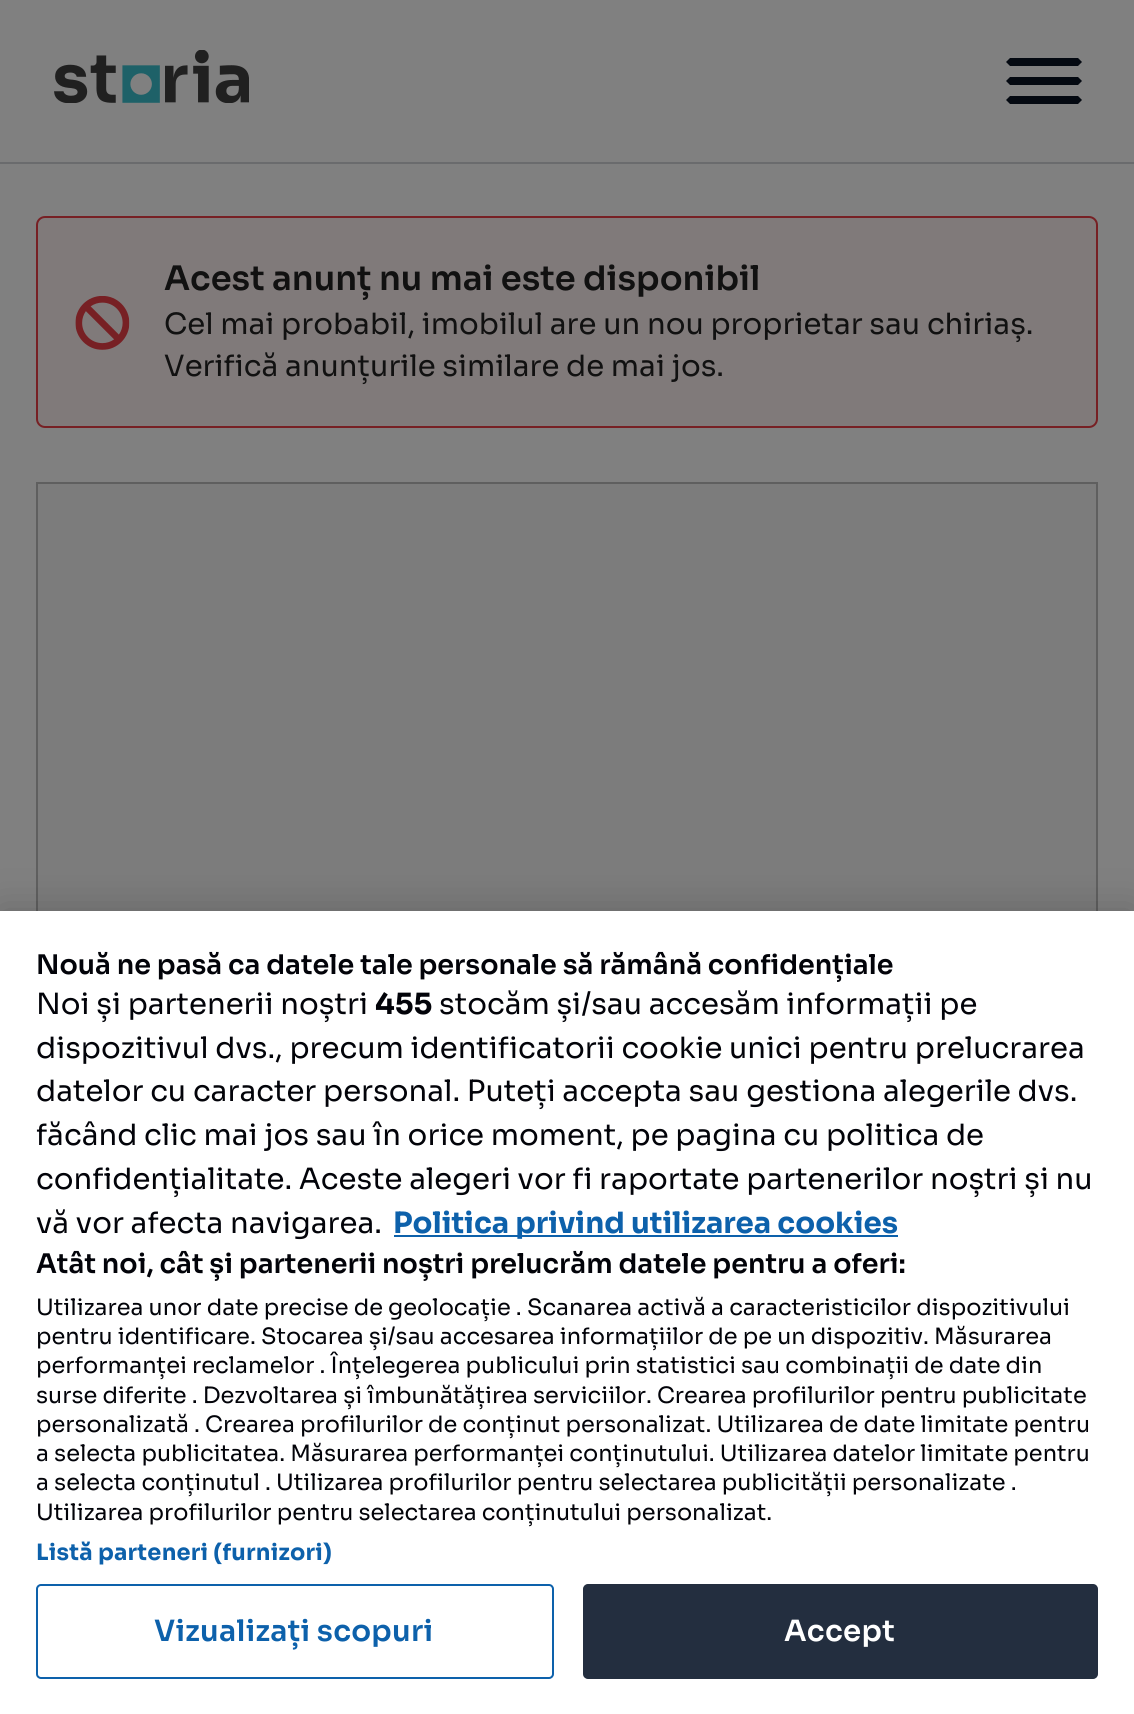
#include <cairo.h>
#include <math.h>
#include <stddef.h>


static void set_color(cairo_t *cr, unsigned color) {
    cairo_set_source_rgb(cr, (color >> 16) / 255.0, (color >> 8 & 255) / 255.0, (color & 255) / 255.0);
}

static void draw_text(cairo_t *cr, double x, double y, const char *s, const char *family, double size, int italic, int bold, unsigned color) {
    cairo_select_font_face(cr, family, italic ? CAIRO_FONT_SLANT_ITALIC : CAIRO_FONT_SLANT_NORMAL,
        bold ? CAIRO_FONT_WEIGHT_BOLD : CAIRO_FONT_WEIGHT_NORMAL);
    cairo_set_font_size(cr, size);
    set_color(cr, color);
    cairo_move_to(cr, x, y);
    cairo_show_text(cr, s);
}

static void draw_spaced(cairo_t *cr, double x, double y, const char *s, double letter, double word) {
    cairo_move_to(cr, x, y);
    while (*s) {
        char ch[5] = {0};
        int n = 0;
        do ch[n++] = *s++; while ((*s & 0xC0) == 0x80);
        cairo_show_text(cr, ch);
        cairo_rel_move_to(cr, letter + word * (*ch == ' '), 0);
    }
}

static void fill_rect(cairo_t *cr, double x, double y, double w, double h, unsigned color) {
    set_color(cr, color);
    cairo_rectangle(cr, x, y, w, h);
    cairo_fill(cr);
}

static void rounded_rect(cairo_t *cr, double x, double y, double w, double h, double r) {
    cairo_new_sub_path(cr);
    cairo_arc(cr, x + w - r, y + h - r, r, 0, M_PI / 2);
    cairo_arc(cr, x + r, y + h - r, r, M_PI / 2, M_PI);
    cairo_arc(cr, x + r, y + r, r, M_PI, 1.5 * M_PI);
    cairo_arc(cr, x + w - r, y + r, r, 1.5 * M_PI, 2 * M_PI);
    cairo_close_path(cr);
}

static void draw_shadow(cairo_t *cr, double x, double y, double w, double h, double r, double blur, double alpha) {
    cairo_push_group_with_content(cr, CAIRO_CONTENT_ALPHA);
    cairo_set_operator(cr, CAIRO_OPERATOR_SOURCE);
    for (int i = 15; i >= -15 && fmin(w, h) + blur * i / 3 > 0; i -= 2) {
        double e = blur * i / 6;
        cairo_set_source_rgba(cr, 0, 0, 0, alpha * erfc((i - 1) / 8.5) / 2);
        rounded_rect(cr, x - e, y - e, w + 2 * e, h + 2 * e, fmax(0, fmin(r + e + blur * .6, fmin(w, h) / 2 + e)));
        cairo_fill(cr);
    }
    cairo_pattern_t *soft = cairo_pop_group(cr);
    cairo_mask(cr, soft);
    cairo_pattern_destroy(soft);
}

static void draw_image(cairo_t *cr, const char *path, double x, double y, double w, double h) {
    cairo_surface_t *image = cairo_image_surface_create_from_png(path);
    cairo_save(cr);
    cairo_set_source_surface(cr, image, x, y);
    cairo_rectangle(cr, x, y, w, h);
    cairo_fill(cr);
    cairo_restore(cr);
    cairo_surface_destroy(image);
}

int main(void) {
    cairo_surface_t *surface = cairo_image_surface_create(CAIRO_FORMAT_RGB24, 1134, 1714);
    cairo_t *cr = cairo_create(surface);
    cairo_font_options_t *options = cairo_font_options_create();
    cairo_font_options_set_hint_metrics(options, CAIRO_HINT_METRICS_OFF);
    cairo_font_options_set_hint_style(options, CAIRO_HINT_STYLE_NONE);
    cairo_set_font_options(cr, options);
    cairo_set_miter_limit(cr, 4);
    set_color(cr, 0x808080);
    cairo_paint(cr);
    fill_rect(cr, 0, 162, 1134, 2, 0x6A6B6D);
    draw_image(cr, "assets/img1.png", 54, 50, 195, 53);
    set_color(cr, 0x040911);
    cairo_new_path(cr);
    cairo_move_to(cr, 1006, 62);
    cairo_line_to(cr, 1010, 58);
    cairo_line_to(cr, 1078, 58);
    cairo_line_to(cr, 1082, 62);
    cairo_line_to(cr, 1078, 66);
    cairo_line_to(cr, 1010, 66);
    cairo_close_path(cr);
    cairo_move_to(cr, 1010, 77);
    cairo_line_to(cr, 1006, 81);
    cairo_line_to(cr, 1010, 85);
    cairo_line_to(cr, 1078, 85);
    cairo_line_to(cr, 1082, 81);
    cairo_line_to(cr, 1078, 77);
    cairo_close_path(cr);
    cairo_move_to(cr, 1010, 96);
    cairo_line_to(cr, 1006, 100);
    cairo_line_to(cr, 1010, 104);
    cairo_line_to(cr, 1078, 104);
    cairo_line_to(cr, 1082, 100);
    cairo_line_to(cr, 1078, 96);
    cairo_close_path(cr);
    cairo_fill(cr);
    set_color(cr, 0x807A7A);
    rounded_rect(cr, 37, 217, 1060, 210, 8);
    cairo_fill_preserve(cr);
    set_color(cr, 0x772024);
    cairo_stroke(cr);
    draw_image(cr, "assets/img2.png", 75, 296, 55, 54);
    draw_text(cr, 164, 290, "Acest anunț nu mai este disponibil", "Sora SemiBold", 33.75, 0, 0, 0x111111);
    draw_text(cr, 164, 334, "Cel mai probabil, imobilul are un nou proprietar sau chiriaș.", "Sora", 29.25, 0, 0, 0x111111);
    draw_text(cr, 164, 376, "Verifică anunțurile similare de mai jos.", "Sora", 29.25, 0, 0, 0x111111);
    cairo_rectangle(cr, 37, 483, 1060, 862);
    set_color(cr, 0x5F5F5F);
    cairo_stroke(cr);
    fill_rect(cr, 38, 484, 1058, 427, 0x7C7C7C);
    set_color(cr, 0x000000);
    draw_shadow(cr, 0, 911, 1134, 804, 0, 20, 0.2);
    fill_rect(cr, 0, 911, 1134, 803, 0xFFFFFF);
    draw_text(cr, 36, 974, "Nouă ne pasă ca datele tale personale să rămână confidențiale", "Sora SemiBold", 27, 0, 0, 0x020309);
    draw_text(cr, 36, 1014, "Noi și partenerii noștri", "Sora", 29.25, 0, 0, 0x020309);
    draw_text(cr, 375, 1014, "455", "Sora", 29.25, 0, 1, 0x020309);
    draw_text(cr, 439, 1014, "stocăm și/sau accesăm informații pe", "Sora", 29.25, 0, 0, 0x020309);
    draw_text(cr, 36, 1058, "dispozitivul dvs., precum identificatorii cookie unici pentru prelucrarea", "Sora", 29.25, 0, 0, 0x020309);
    draw_text(cr, 36, 1101, "datelor cu caracter personal. Puteți accepta sau gestiona alegerile dvs.", "Sora", 29.25, 0, 0, 0x020309);
    draw_text(cr, 36, 1145, "făcând clic mai jos sau în orice moment, pe pagina cu politica de", "Sora", 29.25, 0, 0, 0x020309);
    draw_text(cr, 36, 1189, "confidențialitate. Aceste alegeri vor fi raportate partenerilor noștri și nu", "Sora", 29.25, 0, 0, 0x020309);
    draw_text(cr, 36, 1233, "vă vor afecta navigarea.", "Sora", 29.25, 0, 0, 0x020309);
    fill_rect(cr, 394, 1235, 504, 2, 0x0D61AB);
    draw_text(cr, 393, 1233, "Politica privind utilizarea cookies", "Sora", 29.25, 0, 1, 0x0D61AB);
    draw_text(cr, 36, 1273, "Atât noi, cât și partenerii noștri prelucrăm datele pentru a oferi:", "Sora SemiBold", 27, 0, 0, 0x020309);
    draw_text(cr, 36, 1315, "Utilizarea unor date precise de geolocație . Scanarea activă a caracteristicilor dispozitivului", "Sora", 22.5, 0, 0, 0x020309);
    draw_text(cr, 36, 1344, "pentru identificare. Stocarea și/sau accesarea informațiilor de pe un dispozitiv. Măsurarea", "Sora", 22.5, 0, 0, 0x020309);
    draw_text(cr, 36, 1373, "performanței reclamelor . Înțelegerea publicului prin statistici sau combinații de date din", "Sora", 22.5, 0, 0, 0x020309);
    draw_text(cr, 36, 1403, "surse diferite . Dezvoltarea și îmbunătățirea serviciilor. Crearea profilurilor pentru publicitate", "Sora", 22.5, 0, 0, 0x020309);
    draw_text(cr, 36, 1432, "personalizată . Crearea profilurilor de conținut personalizat. Utilizarea de date limitate pentru", "Sora", 22.5, 0, 0, 0x020309);
    draw_text(cr, 36, 1461, "a selecta publicitatea. Măsurarea performanței conținutului. Utilizarea datelor limitate pentru", "Sora", 22.5, 0, 0, 0x020309);
    draw_text(cr, 36, 1490, "a selecta conținutul . Utilizarea profilurilor pentru selectarea publicității personalizate .", "Sora", 22.5, 0, 0, 0x020309);
    draw_text(cr, 36, 1520, "Utilizarea profilurilor pentru selectarea conținutului personalizat.", "Sora", 22.5, 0, 0, 0x020309);
    cairo_select_font_face(cr, "Sora", CAIRO_FONT_SLANT_NORMAL, CAIRO_FONT_WEIGHT_BOLD);
    set_color(cr, 0x0D61AB);
    draw_spaced(cr, 36, 1560, "Listă parteneri (furnizori)", 0.25, 0);
    rounded_rect(cr, 37, 1585, 516, 93, 4);
    cairo_stroke(cr);
    cairo_select_font_face(cr, "Sora SemiBold", CAIRO_FONT_SLANT_NORMAL, CAIRO_FONT_WEIGHT_NORMAL);
    cairo_set_font_size(cr, 29.25);
    draw_spaced(cr, 154, 1641, "Vizualizați scopuri", 0.25, 0);
    set_color(cr, 0x232E3F);
    rounded_rect(cr, 584, 1585, 513, 93, 4);
    cairo_fill_preserve(cr);
    cairo_stroke(cr);
    set_color(cr, 0xFFFFFF);
    draw_spaced(cr, 784, 1641, "Accept", 0.25, 0);
    cairo_surface_write_to_png(surface, "output.png");
    cairo_font_options_destroy(options);
    cairo_destroy(cr);
    cairo_surface_destroy(surface);
    return 0;
}
